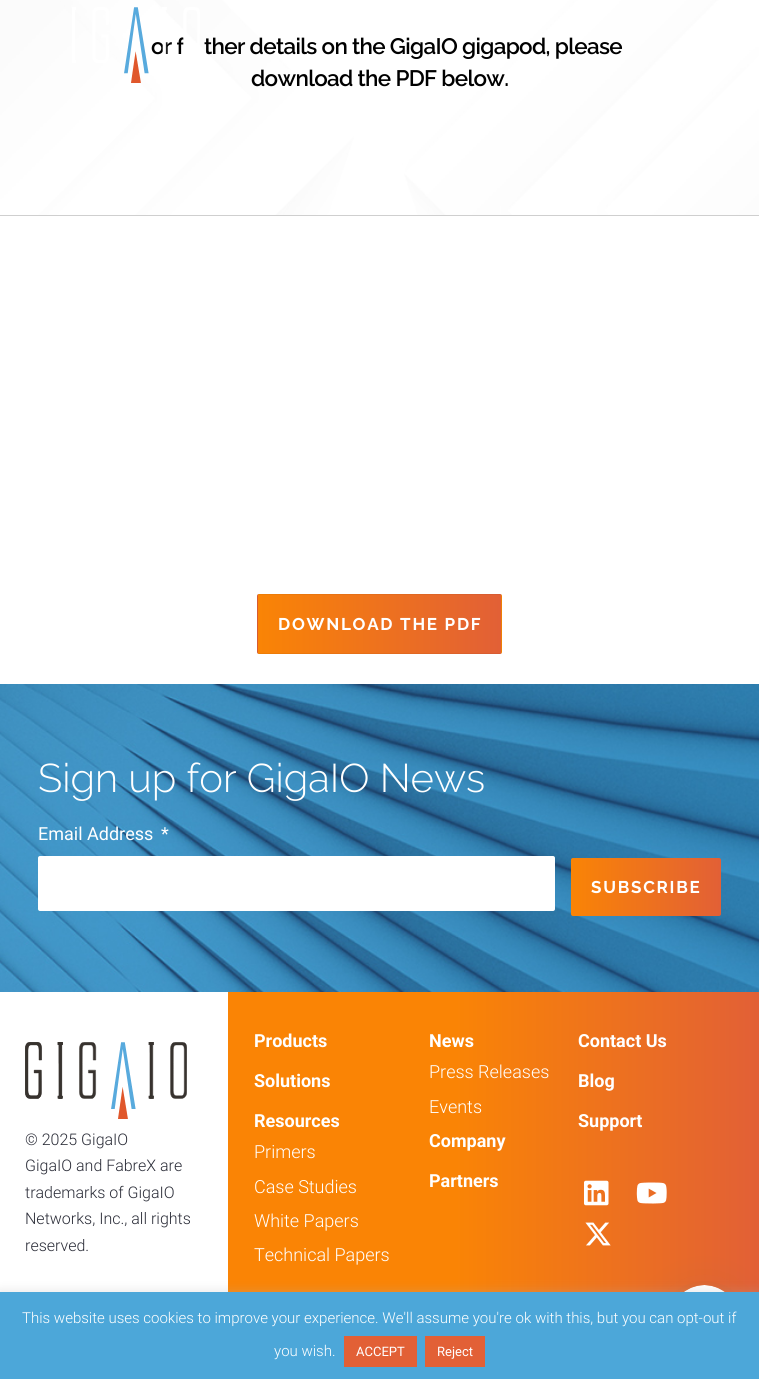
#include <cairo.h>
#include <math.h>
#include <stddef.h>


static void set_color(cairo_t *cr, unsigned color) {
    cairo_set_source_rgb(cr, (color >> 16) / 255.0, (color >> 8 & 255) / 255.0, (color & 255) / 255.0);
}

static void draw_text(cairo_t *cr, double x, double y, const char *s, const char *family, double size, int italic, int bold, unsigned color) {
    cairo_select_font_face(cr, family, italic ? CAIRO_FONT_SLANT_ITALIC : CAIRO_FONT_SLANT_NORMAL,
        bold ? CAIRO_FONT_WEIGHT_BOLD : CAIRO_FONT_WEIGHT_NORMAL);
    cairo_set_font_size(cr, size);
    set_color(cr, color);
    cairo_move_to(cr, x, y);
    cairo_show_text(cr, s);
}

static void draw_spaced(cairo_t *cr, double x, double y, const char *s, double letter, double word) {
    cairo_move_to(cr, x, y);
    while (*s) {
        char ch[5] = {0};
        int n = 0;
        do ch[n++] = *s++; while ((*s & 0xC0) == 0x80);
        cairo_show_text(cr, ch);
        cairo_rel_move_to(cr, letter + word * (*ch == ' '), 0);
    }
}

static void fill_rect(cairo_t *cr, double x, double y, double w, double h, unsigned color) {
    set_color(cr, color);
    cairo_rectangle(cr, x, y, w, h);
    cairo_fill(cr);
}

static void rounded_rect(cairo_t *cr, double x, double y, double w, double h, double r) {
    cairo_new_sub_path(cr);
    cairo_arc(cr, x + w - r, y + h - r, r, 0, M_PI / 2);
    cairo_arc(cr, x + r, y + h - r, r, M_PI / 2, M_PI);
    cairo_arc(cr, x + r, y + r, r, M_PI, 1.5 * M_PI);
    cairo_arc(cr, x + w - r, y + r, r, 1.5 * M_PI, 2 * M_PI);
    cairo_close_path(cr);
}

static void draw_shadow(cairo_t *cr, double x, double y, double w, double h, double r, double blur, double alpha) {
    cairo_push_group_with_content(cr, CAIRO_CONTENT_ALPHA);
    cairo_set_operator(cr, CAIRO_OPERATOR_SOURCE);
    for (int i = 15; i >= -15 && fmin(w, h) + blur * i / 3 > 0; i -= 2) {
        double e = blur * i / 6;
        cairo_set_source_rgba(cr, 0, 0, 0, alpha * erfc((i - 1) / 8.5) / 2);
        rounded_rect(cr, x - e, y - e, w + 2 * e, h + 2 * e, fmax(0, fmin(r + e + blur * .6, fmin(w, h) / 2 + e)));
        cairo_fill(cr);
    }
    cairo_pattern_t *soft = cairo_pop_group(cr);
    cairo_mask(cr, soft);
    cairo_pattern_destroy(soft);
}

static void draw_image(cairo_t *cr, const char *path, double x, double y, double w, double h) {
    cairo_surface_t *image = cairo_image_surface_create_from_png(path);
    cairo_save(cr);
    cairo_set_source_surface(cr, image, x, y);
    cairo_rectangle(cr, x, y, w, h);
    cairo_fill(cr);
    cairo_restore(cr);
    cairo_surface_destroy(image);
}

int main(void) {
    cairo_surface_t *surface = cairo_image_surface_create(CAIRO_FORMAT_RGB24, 759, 1379);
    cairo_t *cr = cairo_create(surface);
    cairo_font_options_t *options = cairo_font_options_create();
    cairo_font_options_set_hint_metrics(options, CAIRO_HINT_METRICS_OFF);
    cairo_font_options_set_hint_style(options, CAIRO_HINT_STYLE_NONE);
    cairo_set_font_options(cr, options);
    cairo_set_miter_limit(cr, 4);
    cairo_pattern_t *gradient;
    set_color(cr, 0xFFFFFF);
    cairo_paint(cr);
    draw_image(cr, "assets/img2.png", 0, 0, 759, 215);
    cairo_select_font_face(cr, "Raleway SemiBold", CAIRO_FONT_SLANT_NORMAL, CAIRO_FONT_WEIGHT_NORMAL);
    cairo_set_font_size(cr, 22.4);
    set_color(cr, 0x000000);
    draw_spaced(cr, 151, 54, "or f", -0.65, 0);
    draw_image(cr, "assets/img1.png", 72, 7, 128, 76);
    fill_rect(cr, 0, 215, 759, 1, 0xCFCFCF);
    set_color(cr, 0x000000);
    draw_spaced(cr, 204, 54, "ther details on the GigaIO gigapod, please", -0.65, 0);
    draw_spaced(cr, 251, 86, "download the PDF below.", -0.65, 0);
    cairo_save(cr);
    rounded_rect(cr, 257, 594, 245, 60, 2);
    cairo_clip(cr);
    gradient = cairo_pattern_create_linear(15, 624, 258, 624);
    cairo_pattern_add_color_stop_rgba(gradient, 0, 0.98, 0.518, 0.02, 1);
    cairo_pattern_add_color_stop_rgba(gradient, 1, 0.886, 0.376, 0.212, 1);
    cairo_set_source(cr, gradient);
    cairo_pattern_destroy(gradient);
    cairo_rectangle(cr, 257, 594, 1, 60);
    cairo_fill(cr);
    gradient = cairo_pattern_create_linear(258, 624, 501, 624);
    cairo_pattern_add_color_stop_rgba(gradient, 0, 0.98, 0.518, 0.02, 1);
    cairo_pattern_add_color_stop_rgba(gradient, 1, 0.886, 0.376, 0.212, 1);
    cairo_set_source(cr, gradient);
    cairo_pattern_destroy(gradient);
    cairo_rectangle(cr, 258, 594, 243, 60);
    cairo_fill(cr);
    gradient = cairo_pattern_create_linear(501, 624, 744, 624);
    cairo_pattern_add_color_stop_rgba(gradient, 0, 0.98, 0.518, 0.02, 1);
    cairo_pattern_add_color_stop_rgba(gradient, 1, 0.886, 0.376, 0.212, 1);
    cairo_set_source(cr, gradient);
    cairo_pattern_destroy(gradient);
    cairo_rectangle(cr, 501, 594, 1, 60);
    cairo_fill(cr);
    cairo_restore(cr);
    cairo_rectangle(cr, 257.5, 594.5, 244, 59);
    cairo_set_source_rgba(cr, 0, 0, 0, 0.05);
    cairo_set_line_width(cr, 1);
    cairo_stroke(cr);
    cairo_select_font_face(cr, "Raleway", CAIRO_FONT_SLANT_NORMAL, CAIRO_FONT_WEIGHT_BOLD);
    cairo_set_font_size(cr, 17);
    set_color(cr, 0xFFFFFF);
    draw_spaced(cr, 278, 630, "DOWNLOAD THE PDF", 1.75, 0);
    draw_image(cr, "assets/img3.png", 0, 684, 759, 308);
    draw_text(cr, 38, 792, "Sign up for GigaIO News", "Raleway Light", 40, 0, 0, 0xFFFFFF);
    draw_text(cr, 38, 840, "Email Address", "Roboto", 18, 0, 0, 0xFFFFFF);
    draw_text(cr, 161, 840, "*", "Roboto", 18, 0, 0, 0xFFFFFF);
    rounded_rect(cr, 38, 856, 517, 55, 2);
    cairo_fill(cr);
    gradient = cairo_pattern_create_linear(571, 887, 721, 887);
    cairo_pattern_add_color_stop_rgba(gradient, 0, 0.98, 0.518, 0.02, 1);
    cairo_pattern_add_color_stop_rgba(gradient, 1, 0.886, 0.376, 0.212, 1);
    cairo_set_source(cr, gradient);
    cairo_pattern_destroy(gradient);
    rounded_rect(cr, 571, 858, 150, 58, 2);
    cairo_fill(cr);
    cairo_select_font_face(cr, "Raleway", CAIRO_FONT_SLANT_NORMAL, CAIRO_FONT_WEIGHT_BOLD);
    cairo_set_font_size(cr, 17);
    set_color(cr, 0xFFFFFF);
    draw_spaced(cr, 591, 893, "SUBSCRIBE", 1.75, 0);
    gradient = cairo_pattern_create_linear(0, 1186, 759, 1186);
    cairo_pattern_add_color_stop_rgba(gradient, 0.3, 1, 1, 1, 1);
    cairo_pattern_add_color_stop_rgba(gradient, 0.3, 0.98, 0.518, 0.02, 1);
    cairo_pattern_add_color_stop_rgba(gradient, 0.6, 0.98, 0.518, 0.02, 1);
    cairo_pattern_add_color_stop_rgba(gradient, 1, 0.886, 0.376, 0.212, 1);
    cairo_set_source(cr, gradient);
    cairo_pattern_destroy(gradient);
    cairo_rectangle(cr, 228, 992, 531, 300);
    cairo_fill(cr);
    draw_image(cr, "assets/img4.png", 25, 1042, 162, 77);
    draw_text(cr, 25, 1145, "© 2025 GigaIO", "Roboto Light", 16, 0, 0, 0x2B2D38);
    draw_text(cr, 25, 1171, "GigaIO and FabreX are", "Roboto Light", 16, 0, 0, 0x2B2D38);
    draw_text(cr, 25, 1198, "trademarks of GigaIO", "Roboto Light", 16, 0, 0, 0x2B2D38);
    draw_text(cr, 25, 1224, "Networks, Inc., all rights", "Roboto Light", 16, 0, 0, 0x2B2D38);
    draw_text(cr, 25, 1251, "reserved.", "Roboto Light", 16, 0, 0, 0x2B2D38);
    draw_text(cr, 254, 1047, "Products", "Roboto", 18, 0, 1, 0xFFFFFF);
    draw_text(cr, 254, 1087, "Solutions", "Roboto", 18, 0, 1, 0xFFFFFF);
    draw_text(cr, 254, 1127, "Resources", "Roboto", 18, 0, 1, 0xFFFFFF);
    draw_text(cr, 254, 1158, "Primers", "Roboto Light", 18, 0, 0, 0xFFFFFF);
    draw_text(cr, 254, 1193, "Case Studies", "Roboto Light", 18, 0, 0, 0xFFFFFF);
    draw_text(cr, 254, 1227, "White Papers", "Roboto Light", 18, 0, 0, 0xFFFFFF);
    draw_text(cr, 254, 1261, "Technical Papers", "Roboto Light", 18, 0, 0, 0xFFFFFF);
    draw_text(cr, 429, 1047, "News", "Roboto", 18, 0, 1, 0xFFFFFF);
    draw_text(cr, 429, 1078, "Press Releases", "Roboto Light", 18, 0, 0, 0xFFFFFF);
    draw_text(cr, 429, 1113, "Events", "Roboto Light", 18, 0, 0, 0xFFFFFF);
    draw_text(cr, 429, 1147, "Company", "Roboto", 18, 0, 1, 0xFFFFFF);
    draw_text(cr, 429, 1187, "Partners", "Roboto", 18, 0, 1, 0xFFFFFF);
    draw_text(cr, 578, 1047, "Contact Us", "Roboto", 18, 0, 1, 0xFFFFFF);
    draw_text(cr, 578, 1087, "Blog", "Roboto", 18, 0, 1, 0xFFFFFF);
    draw_text(cr, 578, 1127, "Support", "Roboto", 18, 0, 1, 0xFFFFFF);
    draw_image(cr, "assets/img5.png", 584, 1180, 25, 26);
    draw_image(cr, "assets/img6.png", 636, 1182, 31, 22);
    draw_image(cr, "assets/img7.png", 585, 1222, 26, 24);
    set_color(cr, 0x1E5A79);
    draw_shadow(cr, 672, 1297, 65, 65, 32.5, 19, 0.17);
    draw_image(cr, "assets/img8.png", 684, 1285, 41, 7);
    set_color(cr, 0xACABAB);
    draw_shadow(cr, 0, 1291, 759, 87, 0, 5, 0.3);
    fill_rect(cr, 0, 1292, 759, 87, 0x4CA7D9);
    draw_text(cr, 22, 1323, "This website uses cookies to improve your experience. We'll assume you're ok with this, but you can opt-out if", "Roboto Light", 15, 0, 0, 0xFFFFFF);
    draw_text(cr, 274, 1356, "you wish.", "Roboto Light", 15, 0, 0, 0xFFFFFF);
    fill_rect(cr, 344, 1336, 73, 31, 0xE26036);
    draw_text(cr, 356, 1356, "ACCEPT", "Roboto", 13, 0, 0, 0xFFFFFF);
    fill_rect(cr, 425, 1336, 60, 31, 0xE26036);
    draw_text(cr, 437, 1356, "Reject", "Roboto", 13, 0, 0, 0xFFFFFF);
    cairo_surface_write_to_png(surface, "output.png");
    cairo_font_options_destroy(options);
    cairo_destroy(cr);
    cairo_surface_destroy(surface);
    return 0;
}
